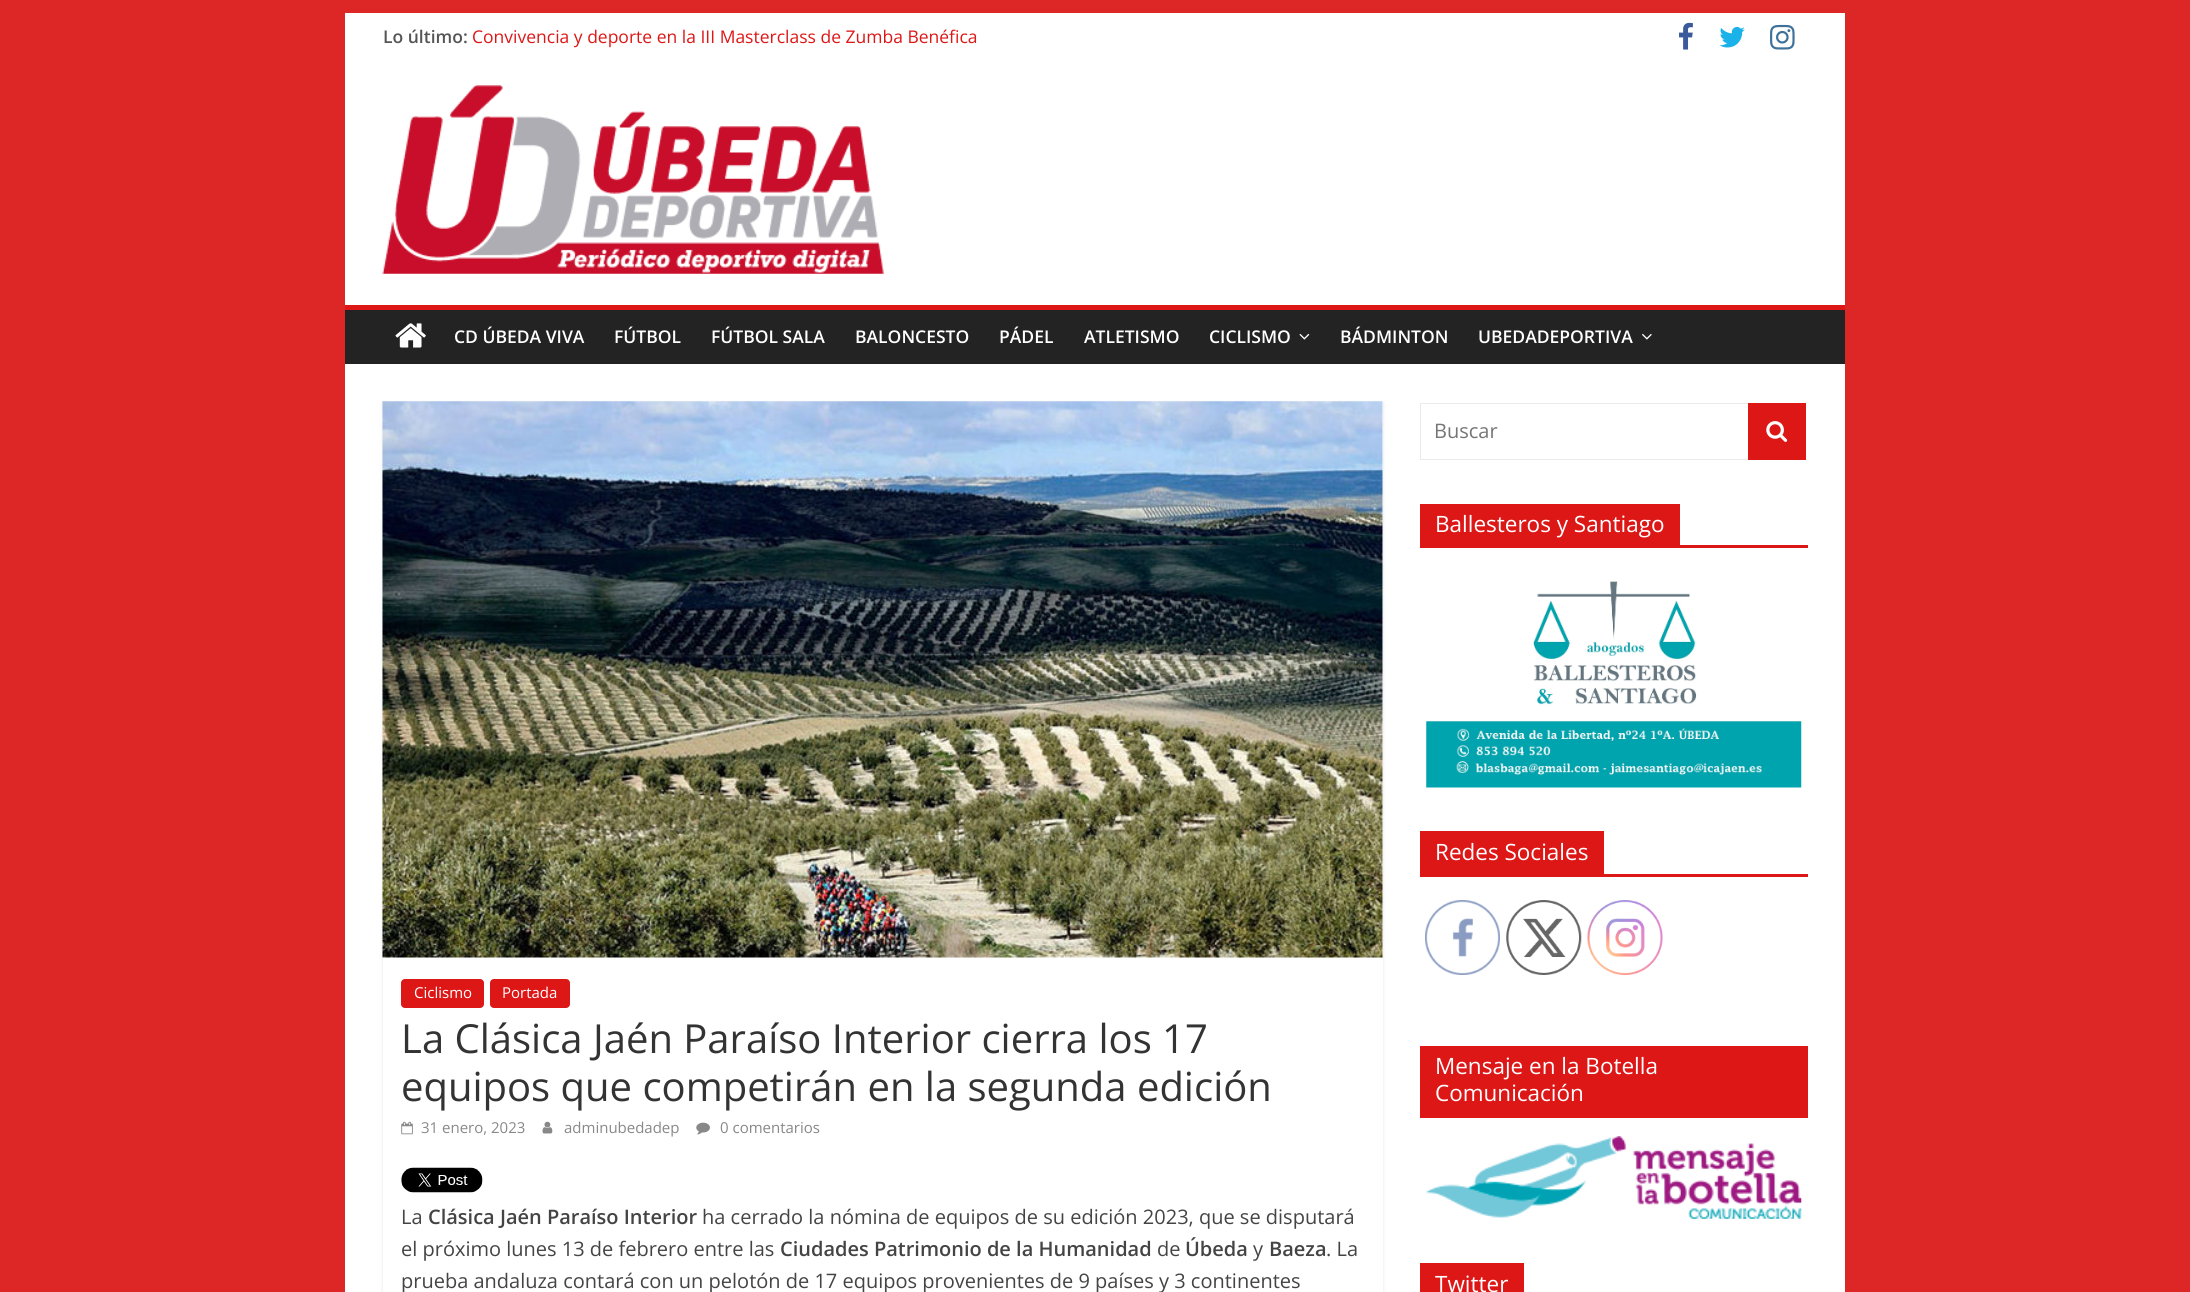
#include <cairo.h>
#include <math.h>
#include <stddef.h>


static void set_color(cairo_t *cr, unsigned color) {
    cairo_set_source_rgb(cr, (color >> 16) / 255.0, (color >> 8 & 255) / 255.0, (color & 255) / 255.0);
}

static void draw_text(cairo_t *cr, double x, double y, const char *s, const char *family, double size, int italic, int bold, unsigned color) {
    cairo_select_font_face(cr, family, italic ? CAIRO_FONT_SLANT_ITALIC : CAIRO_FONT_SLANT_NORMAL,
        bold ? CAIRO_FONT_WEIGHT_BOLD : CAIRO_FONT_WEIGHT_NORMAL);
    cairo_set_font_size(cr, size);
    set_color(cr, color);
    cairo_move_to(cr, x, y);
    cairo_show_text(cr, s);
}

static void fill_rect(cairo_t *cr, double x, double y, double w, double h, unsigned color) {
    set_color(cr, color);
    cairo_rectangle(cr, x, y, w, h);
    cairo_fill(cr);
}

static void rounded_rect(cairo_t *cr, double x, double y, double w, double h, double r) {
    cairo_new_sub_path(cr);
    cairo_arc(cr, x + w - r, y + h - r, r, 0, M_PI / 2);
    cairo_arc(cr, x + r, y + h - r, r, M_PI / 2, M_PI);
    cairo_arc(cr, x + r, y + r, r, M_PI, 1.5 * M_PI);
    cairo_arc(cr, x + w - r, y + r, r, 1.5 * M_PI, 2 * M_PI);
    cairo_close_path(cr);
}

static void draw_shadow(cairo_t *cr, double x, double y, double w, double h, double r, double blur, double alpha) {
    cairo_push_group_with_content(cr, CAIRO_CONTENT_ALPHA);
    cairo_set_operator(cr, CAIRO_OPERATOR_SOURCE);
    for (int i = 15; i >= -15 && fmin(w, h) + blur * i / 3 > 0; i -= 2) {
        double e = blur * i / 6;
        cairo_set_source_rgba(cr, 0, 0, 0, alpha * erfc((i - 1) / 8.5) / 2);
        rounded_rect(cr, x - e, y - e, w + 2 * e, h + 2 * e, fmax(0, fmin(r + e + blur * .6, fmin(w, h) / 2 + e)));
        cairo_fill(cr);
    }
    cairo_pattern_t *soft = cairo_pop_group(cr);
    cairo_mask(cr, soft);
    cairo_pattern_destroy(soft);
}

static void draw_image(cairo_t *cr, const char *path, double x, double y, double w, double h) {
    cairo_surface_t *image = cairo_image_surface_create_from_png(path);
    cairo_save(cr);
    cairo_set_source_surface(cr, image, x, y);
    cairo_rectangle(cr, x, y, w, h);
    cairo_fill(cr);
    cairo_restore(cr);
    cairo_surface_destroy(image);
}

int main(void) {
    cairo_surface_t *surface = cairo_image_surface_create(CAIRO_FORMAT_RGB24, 2190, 1292);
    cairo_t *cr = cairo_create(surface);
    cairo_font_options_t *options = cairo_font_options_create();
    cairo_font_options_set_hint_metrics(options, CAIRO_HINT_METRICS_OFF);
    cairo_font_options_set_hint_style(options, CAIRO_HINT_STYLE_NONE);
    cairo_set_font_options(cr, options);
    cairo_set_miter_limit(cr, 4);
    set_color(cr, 0xDD2727);
    cairo_paint(cr);
    fill_rect(cr, 345, 13, 1500, 292, 0xFFFFFF);
    draw_text(cr, 383, 43, "Lo último:", "Open Sans SemiBold", 17.5, 0, 0, 0x555555);
    draw_text(cr, 472, 43, "Convivencia y deporte en la III Masterclass de Zumba Benéfica", "Open Sans", 17.5, 0, 0, 0xDD1616);
    draw_image(cr, "assets/img1.png", 1679, 22, 14, 28);
    draw_image(cr, "assets/img2.png", 1719, 27, 26, 21);
    draw_image(cr, "assets/img3.png", 1770, 24, 25, 26);
    draw_image(cr, "assets/img4.png", 382, 85, 502, 189);
    fill_rect(cr, 345, 310, 1500, 54, 0x232323);
    fill_rect(cr, 345, 305, 1500, 5, 0xDD1616);
    draw_image(cr, "assets/img5.png", 395, 323, 31, 25);
    draw_text(cr, 454, 343, "CD ÚBEDA VIVA", "Open Sans SemiBold", 17.5, 0, 0, 0xFFFFFF);
    draw_text(cr, 614, 343, "FÚTBOL", "Open Sans SemiBold", 17.5, 0, 0, 0xFFFFFF);
    draw_text(cr, 711, 343, "FÚTBOL SALA", "Open Sans SemiBold", 17.5, 0, 0, 0xFFFFFF);
    draw_text(cr, 855, 343, "BALONCESTO", "Open Sans SemiBold", 17.5, 0, 0, 0xFFFFFF);
    draw_text(cr, 999, 343, "PÁDEL", "Open Sans SemiBold", 17.5, 0, 0, 0xFFFFFF);
    draw_text(cr, 1084, 343, "ATLETISMO", "Open Sans SemiBold", 17.5, 0, 0, 0xFFFFFF);
    draw_text(cr, 1209, 343, "CICLISMO", "Open Sans SemiBold", 17.5, 0, 0, 0xFFFFFF);
    draw_image(cr, "assets/img6.png", 1299, 333, 11, 7);
    draw_text(cr, 1340, 343, "BÁDMINTON", "Open Sans SemiBold", 17.5, 0, 0, 0xFFFFFF);
    draw_text(cr, 1478, 343, "UBEDADEPORTIVA", "Open Sans SemiBold", 17.5, 0, 0, 0xFFFFFF);
    draw_image(cr, "assets/img7.png", 1642, 333, 10, 7);
    fill_rect(cr, 345, 364, 1500, 928, 0xFFFFFF);
    cairo_save(cr);
    cairo_set_fill_rule(cr, CAIRO_FILL_RULE_EVEN_ODD);
    cairo_new_path(cr);
    cairo_move_to(cr, 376, 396);
    cairo_line_to(cr, 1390, 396);
    cairo_line_to(cr, 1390, 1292);
    cairo_line_to(cr, 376, 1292);
    cairo_close_path(cr);
    cairo_move_to(cr, 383, 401);
    cairo_line_to(cr, 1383, 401);
    cairo_line_to(cr, 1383, 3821);
    cairo_line_to(cr, 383, 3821);
    cairo_close_path(cr);
    cairo_clip(cr);
    set_color(cr, 0x000000);
    draw_shadow(cr, 383, 403, 1000, 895, 0, 2, 0.1);
    cairo_restore(cr);
    draw_image(cr, "assets/img8.png", 382, 401, 1001, 557);
    set_color(cr, 0xDD1616);
    rounded_rect(cr, 401, 979, 83, 29, 4);
    cairo_fill(cr);
    draw_text(cr, 414, 998, "Ciclismo", "Open Sans", 15, 0, 0, 0xFFFFFF);
    set_color(cr, 0xDD1616);
    rounded_rect(cr, 490, 979, 80, 29, 4);
    cairo_fill(cr);
    draw_text(cr, 502, 998, "Portada", "Open Sans", 15, 0, 0, 0xFFFFFF);
    draw_text(cr, 401, 1053, "La Clásica Jaén Paraíso Interior cierra los 17", "Open Sans", 40, 0, 0, 0x333333);
    draw_text(cr, 401, 1101, "equipos que competirán en la segunda edición", "Open Sans", 40, 0, 0, 0x333333);
    draw_image(cr, "assets/img9.png", 401, 1121, 12, 14);
    draw_text(cr, 421, 1133, "31 enero, 2023", "Open Sans", 15, 0, 0, 0x888888);
    draw_image(cr, "assets/img10.png", 542, 1121, 11, 13);
    draw_text(cr, 564, 1133, "adminubedadep", "Open Sans", 15, 0, 0, 0x888888);
    draw_image(cr, "assets/img11.png", 696, 1122, 14, 13);
    draw_text(cr, 720, 1133, "0 comentarios", "Open Sans", 15, 0, 0, 0x888888);
    draw_image(cr, "assets/img12.png", 401, 1167, 82, 26);
    draw_text(cr, 401, 1224, "La", "Open Sans", 20, 0, 0, 0x444444);
    draw_text(cr, 428, 1224, "Clásica Jaén Paraíso Interior", "Open Sans SemiBold", 20, 0, 0, 0x444444);
    draw_text(cr, 702, 1224, "ha cerrado la nómina de equipos de su edición 2023, que se disputará", "Open Sans", 20, 0, 0, 0x444444);
    draw_text(cr, 401, 1256, "el próximo lunes 13 de febrero entre las", "Open Sans", 20, 0, 0, 0x444444);
    draw_text(cr, 780, 1256, "Ciudades Patrimonio de la Humanidad", "Open Sans SemiBold", 20, 0, 0, 0x444444);
    draw_text(cr, 1157, 1256, "de", "Open Sans", 20, 0, 0, 0x444444);
    draw_text(cr, 1185, 1256, "Úbeda", "Open Sans SemiBold", 20, 0, 0, 0x444444);
    draw_text(cr, 1253, 1256, "y", "Open Sans", 20, 0, 0, 0x444444);
    draw_text(cr, 1269, 1256, "Baeza", "Open Sans SemiBold", 20, 0, 0, 0x444444);
    draw_text(cr, 1326, 1256, ". La", "Open Sans", 20, 0, 0, 0x444444);
    draw_text(cr, 401, 1288, "prueba andaluza contará con un pelotón de 17 equipos provenientes de 9 países y 3 continentes", "Open Sans", 20, 0, 0, 0x444444);
    cairo_rectangle(cr, 1420.5, 403.5, 329, 56);
    set_color(cr, 0xEAEAEA);
    cairo_set_line_width(cr, 1);
    cairo_stroke(cr);
    draw_text(cr, 1434, 438, "Buscar", "Open Sans", 20, 0, 0, 0x757575);
    fill_rect(cr, 1748, 403, 58, 57, 0xDD1616);
    draw_image(cr, "assets/img13.png", 1766, 421, 22, 21);
    fill_rect(cr, 1420, 545, 388, 3, 0xDD1616);
    fill_rect(cr, 1420, 504, 260, 41, 0xDD1616);
    draw_text(cr, 1435, 532, "Ballesteros y Santiago", "Open Sans", 22.5, 0, 0, 0xFFFFFF);
    draw_image(cr, "assets/img14.png", 1426, 581, 376, 207);
    fill_rect(cr, 1420, 874, 388, 3, 0xDD1616);
    fill_rect(cr, 1420, 831, 184, 43, 0xDD1616);
    draw_text(cr, 1435, 860, "Redes Sociales", "Open Sans", 22.5, 0, 0, 0xFFFFFF);
    draw_image(cr, "assets/img15.png", 1425, 900, 75, 75);
    draw_image(cr, "assets/img16.png", 1506, 900, 76, 75);
    draw_image(cr, "assets/img17.png", 1587, 900, 76, 75);
    fill_rect(cr, 1420, 1046, 388, 72, 0xDD1616);
    draw_text(cr, 1435, 1074, "Mensaje en la Botella", "Open Sans", 22.5, 0, 0, 0xFFFFFF);
    draw_text(cr, 1435, 1101, "Comunicación", "Open Sans", 22.5, 0, 0, 0xFFFFFF);
    draw_image(cr, "assets/img18.png", 1426, 1136, 376, 83);
    fill_rect(cr, 1420, 1263, 104, 29, 0xDD1616);
    draw_text(cr, 1435, 1292, "Twitter", "Open Sans", 22.5, 0, 0, 0xFFFFFF);
    cairo_surface_write_to_png(surface, "output.png");
    cairo_font_options_destroy(options);
    cairo_destroy(cr);
    cairo_surface_destroy(surface);
    return 0;
}
